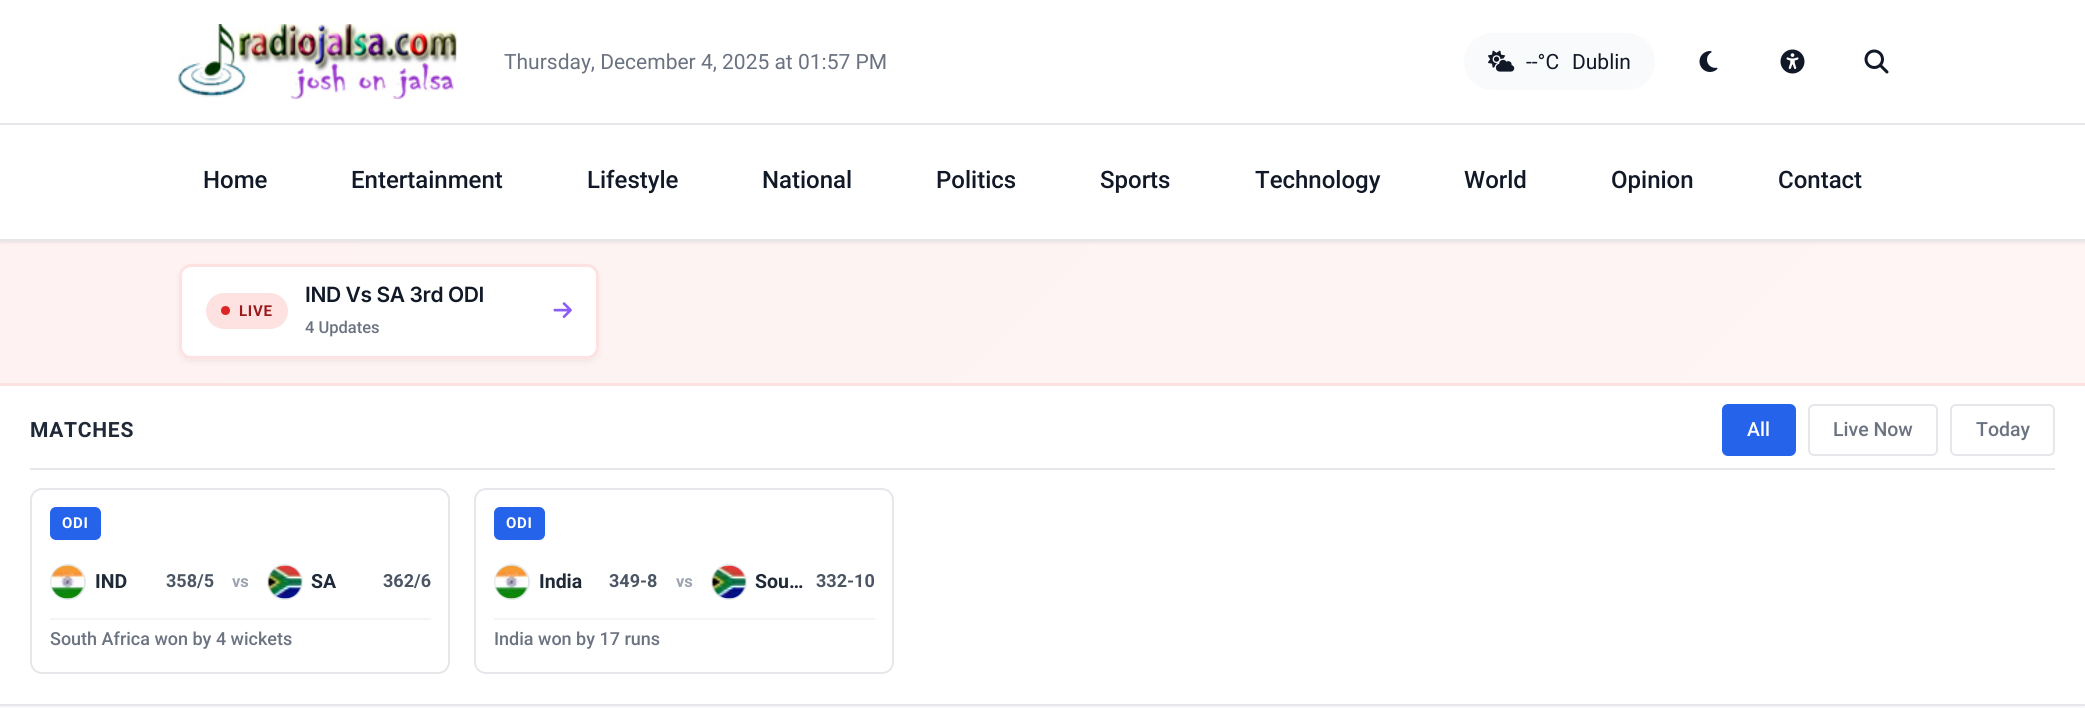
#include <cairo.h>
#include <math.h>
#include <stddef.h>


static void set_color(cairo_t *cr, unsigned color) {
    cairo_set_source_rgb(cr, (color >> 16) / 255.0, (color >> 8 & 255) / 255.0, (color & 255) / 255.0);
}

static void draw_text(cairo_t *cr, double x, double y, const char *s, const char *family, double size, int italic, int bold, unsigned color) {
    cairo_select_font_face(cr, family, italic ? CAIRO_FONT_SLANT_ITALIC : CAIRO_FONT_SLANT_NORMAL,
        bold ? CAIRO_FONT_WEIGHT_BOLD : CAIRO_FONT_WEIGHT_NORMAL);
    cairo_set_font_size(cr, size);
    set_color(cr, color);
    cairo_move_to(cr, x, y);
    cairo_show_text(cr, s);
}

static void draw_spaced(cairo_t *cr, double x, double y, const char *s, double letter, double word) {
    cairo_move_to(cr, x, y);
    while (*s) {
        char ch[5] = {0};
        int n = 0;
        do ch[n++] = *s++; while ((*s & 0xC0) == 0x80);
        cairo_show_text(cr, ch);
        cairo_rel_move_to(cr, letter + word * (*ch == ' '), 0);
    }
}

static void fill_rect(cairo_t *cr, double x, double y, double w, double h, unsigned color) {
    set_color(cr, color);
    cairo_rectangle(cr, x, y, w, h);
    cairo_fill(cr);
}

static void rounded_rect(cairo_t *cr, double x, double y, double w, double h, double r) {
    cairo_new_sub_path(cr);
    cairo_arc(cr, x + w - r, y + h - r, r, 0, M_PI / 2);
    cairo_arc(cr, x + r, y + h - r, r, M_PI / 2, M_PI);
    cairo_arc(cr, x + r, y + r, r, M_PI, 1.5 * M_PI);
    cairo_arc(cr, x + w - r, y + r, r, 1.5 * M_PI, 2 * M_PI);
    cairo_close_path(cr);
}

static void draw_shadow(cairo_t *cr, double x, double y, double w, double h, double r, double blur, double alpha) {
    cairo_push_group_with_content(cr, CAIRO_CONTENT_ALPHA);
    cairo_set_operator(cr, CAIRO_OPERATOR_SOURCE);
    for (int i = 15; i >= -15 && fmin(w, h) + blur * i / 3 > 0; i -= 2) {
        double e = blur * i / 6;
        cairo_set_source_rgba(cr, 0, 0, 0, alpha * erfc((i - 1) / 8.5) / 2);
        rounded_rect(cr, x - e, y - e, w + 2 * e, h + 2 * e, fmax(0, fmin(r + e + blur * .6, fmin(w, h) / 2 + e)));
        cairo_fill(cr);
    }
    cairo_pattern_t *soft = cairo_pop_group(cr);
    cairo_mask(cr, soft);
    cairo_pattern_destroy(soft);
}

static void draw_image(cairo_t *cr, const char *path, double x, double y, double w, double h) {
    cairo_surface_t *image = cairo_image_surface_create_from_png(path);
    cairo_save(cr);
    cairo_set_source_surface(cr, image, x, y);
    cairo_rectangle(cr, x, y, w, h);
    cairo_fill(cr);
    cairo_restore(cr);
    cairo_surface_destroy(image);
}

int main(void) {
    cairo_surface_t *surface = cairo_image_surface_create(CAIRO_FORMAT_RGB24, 2085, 708);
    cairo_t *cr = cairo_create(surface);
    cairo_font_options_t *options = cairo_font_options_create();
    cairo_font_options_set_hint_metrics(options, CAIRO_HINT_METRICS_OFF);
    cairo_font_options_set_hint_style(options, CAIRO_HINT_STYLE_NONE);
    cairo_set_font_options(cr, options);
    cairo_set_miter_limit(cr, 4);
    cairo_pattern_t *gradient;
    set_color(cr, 0xFFFFFF);
    cairo_paint(cr);
    gradient = cairo_pattern_create_linear(486, -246, 1599, 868);
    cairo_pattern_add_color_stop_rgba(gradient, 0, 0.996, 0.949, 0.949, 1);
    cairo_pattern_add_color_stop_rgba(gradient, 1, 1, 0.961, 0.961, 1);
    cairo_set_source(cr, gradient);
    cairo_pattern_destroy(gradient);
    cairo_rectangle(cr, 0, 241, 2085, 142);
    cairo_fill(cr);
    set_color(cr, 0x000000);
    draw_shadow(cr, 0, 2, 2085, 240, 0, 2, 0.1);
    fill_rect(cr, 0, 0, 2085, 239, 0xFFFFFF);
    fill_rect(cr, 0, 123, 2085, 2, 0xE5E7EB);
    draw_image(cr, "assets/img1.png", 178, 24, 279, 75);
    draw_text(cr, 504, 69, "Thursday, December 4, 2025 at 01:57 PM", "Roboto", 21, 0, 0, 0x6B7280);
    set_color(cr, 0xF9FAFB);
    rounded_rect(cr, 1464, 33, 191, 57, 28.5);
    cairo_fill(cr);
    draw_image(cr, "assets/img2.png", 1488, 50, 27, 22);
    draw_text(cr, 1526, 69, "--°C", "Roboto", 21, 0, 0, 0x111827);
    draw_text(cr, 1572, 69, "Dublin", "Roboto", 21, 0, 0, 0x111827);
    draw_image(cr, "assets/img3.png", 1699, 51, 19, 21);
    draw_image(cr, "assets/img4.png", 1780, 49, 25, 25);
    draw_image(cr, "assets/img5.png", 1864, 49, 25, 25);
    fill_rect(cr, 0, 239, 2085, 2, 0xE5E7EB);
    draw_text(cr, 203, 188, "Home", "Roboto Medium", 24, 0, 0, 0x111827);
    draw_text(cr, 351, 188, "Entertainment", "Roboto Medium", 24, 0, 0, 0x111827);
    draw_text(cr, 587, 188, "Lifestyle", "Roboto Medium", 24, 0, 0, 0x111827);
    draw_text(cr, 762, 188, "National", "Roboto Medium", 24, 0, 0, 0x111827);
    draw_text(cr, 936, 188, "Politics", "Roboto Medium", 24, 0, 0, 0x111827);
    draw_text(cr, 1100, 188, "Sports", "Roboto Medium", 24, 0, 0, 0x111827);
    draw_text(cr, 1255, 188, "Technology", "Roboto Medium", 24, 0, 0, 0x111827);
    draw_text(cr, 1464, 188, "World", "Roboto Medium", 24, 0, 0, 0x111827);
    draw_text(cr, 1611, 188, "Opinion", "Roboto Medium", 24, 0, 0, 0x111827);
    draw_text(cr, 1778, 188, "Contact", "Roboto Medium", 24, 0, 0, 0x111827);
    fill_rect(cr, 0, 383, 2085, 3, 0xFEE2E2);
    cairo_save(cr);
    cairo_set_fill_rule(cr, CAIRO_FILL_RULE_EVEN_ODD);
    cairo_new_path(cr);
    cairo_move_to(cr, 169, 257);
    cairo_line_to(cr, 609, 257);
    cairo_line_to(cr, 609, 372);
    cairo_line_to(cr, 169, 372);
    cairo_close_path(cr);
    cairo_move_to(cr, 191, 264);
    cairo_line_to(cr, 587, 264);
    cairo_curve_to(cr, 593.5, 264, 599, 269.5, 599, 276);
    cairo_line_to(cr, 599, 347);
    cairo_curve_to(cr, 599, 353.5, 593.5, 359, 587, 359);
    cairo_line_to(cr, 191, 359);
    cairo_curve_to(cr, 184.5, 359, 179, 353.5, 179, 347);
    cairo_line_to(cr, 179, 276);
    cairo_curve_to(cr, 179, 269.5, 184.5, 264, 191, 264);
    cairo_close_path(cr);
    cairo_clip(cr);
    set_color(cr, 0x000000);
    draw_shadow(cr, 179, 267, 420, 95, 12, 3, 0.05);
    cairo_restore(cr);
    set_color(cr, 0xFFFFFF);
    rounded_rect(cr, 180.5, 265.5, 417, 92, 10.5);
    cairo_fill_preserve(cr);
    set_color(cr, 0xFEE2E2);
    cairo_set_line_width(cr, 3);
    cairo_stroke(cr);
    rounded_rect(cr, 206, 293, 82, 36, 18);
    cairo_fill(cr);
    set_color(cr, 0xDC2626);
    cairo_arc(cr, 225.5, 310.5, 4.5, 0, 2 * M_PI);
    cairo_fill(cr);
    cairo_select_font_face(cr, "Roboto", CAIRO_FONT_SLANT_NORMAL, CAIRO_FONT_WEIGHT_BOLD);
    cairo_set_font_size(cr, 15);
    set_color(cr, 0x991B1B);
    draw_spaced(cr, 239, 316, "LIVE", 0.75, 0);
    cairo_select_font_face(cr, "Inter SemiBold", CAIRO_FONT_SLANT_NORMAL, CAIRO_FONT_WEIGHT_NORMAL);
    cairo_set_font_size(cr, 21);
    set_color(cr, 0x111827);
    draw_spaced(cr, 305, 302, "IND Vs SA 3rd ODI", -0.4, 0);
    draw_text(cr, 305, 333, "4 Updates", "Roboto Medium", 16.5, 0, 0, 0x6B7280);
    draw_image(cr, "assets/img6.png", 553, 302, 19, 16);
    set_color(cr, 0x000000);
    draw_shadow(cr, 0, 389, 2085, 319, 0, 3, 0.05);
    fill_rect(cr, 0, 386, 2085, 318, 0xFFFFFF);
    fill_rect(cr, 0, 704, 2085, 2, 0xE5E7EB);
    fill_rect(cr, 30, 468, 2025, 2, 0xE5E7EB);
    cairo_select_font_face(cr, "Roboto", CAIRO_FONT_SLANT_NORMAL, CAIRO_FONT_WEIGHT_BOLD);
    cairo_set_font_size(cr, 21);
    set_color(cr, 0x1F2937);
    draw_spaced(cr, 30, 437, "MATCHES", 0.75, 0);
    set_color(cr, 0x2563EB);
    rounded_rect(cr, 1723, 405, 72, 50, 5);
    cairo_fill_preserve(cr);
    cairo_set_line_width(cr, 2);
    cairo_stroke(cr);
    draw_text(cr, 1747, 436, "All", "Roboto Medium", 19.5, 0, 0, 0xFFFFFF);
    rounded_rect(cr, 1809, 405, 128, 50, 5);
    set_color(cr, 0xE5E7EB);
    cairo_stroke(cr);
    draw_text(cr, 1833, 436, "Live Now", "Roboto Medium", 19.5, 0, 0, 0x6B7280);
    rounded_rect(cr, 1951, 405, 103, 50, 5);
    set_color(cr, 0xE5E7EB);
    cairo_stroke(cr);
    draw_text(cr, 1976, 436, "Today", "Roboto Medium", 19.5, 0, 0, 0x6B7280);
    rounded_rect(cr, 31, 489, 418, 184, 11);
    set_color(cr, 0xE5E7EB);
    cairo_stroke(cr);
    set_color(cr, 0x2563EB);
    rounded_rect(cr, 50, 507, 51, 33, 6);
    cairo_fill(cr);
    cairo_select_font_face(cr, "Roboto", CAIRO_FONT_SLANT_NORMAL, CAIRO_FONT_WEIGHT_BOLD);
    cairo_set_font_size(cr, 15);
    set_color(cr, 0xFFFFFF);
    draw_spaced(cr, 62, 528, "ODI", 0.75, 0);
    cairo_new_path(cr);
    cairo_arc(cr, 68, 582, 17, 0, 2 * M_PI);
    set_color(cr, 0xE5E7EB);
    cairo_stroke(cr);
    draw_image(cr, "assets/img7.png", 51, 565, 33, 34);
    draw_text(cr, 95, 588, "IND", "Roboto", 19.5, 0, 1, 0x1F2937);
    draw_text(cr, 166, 587, "358/5", "Roboto", 18, 0, 1, 0x4B5563);
    draw_text(cr, 232, 587, "vs", "Roboto", 16.5, 0, 1, 0x9CA3AF);
    cairo_new_path(cr);
    cairo_arc(cr, 285, 582, 17, 0, 2 * M_PI);
    set_color(cr, 0xE5E7EB);
    cairo_stroke(cr);
    draw_image(cr, "assets/img8.png", 268, 565, 34, 34);
    draw_text(cr, 311, 588, "SA", "Roboto", 19.5, 0, 1, 0x1F2937);
    draw_text(cr, 383, 587, "362/6", "Roboto", 18, 0, 1, 0x4B5563);
    fill_rect(cr, 50, 618, 381, 2, 0xF3F4F6);
    draw_text(cr, 50, 645, "South Africa won by 4 wickets", "Roboto Medium", 18, 0, 0, 0x6B7280);
    rounded_rect(cr, 475, 489, 418, 184, 11);
    set_color(cr, 0xE5E7EB);
    cairo_stroke(cr);
    set_color(cr, 0x2563EB);
    rounded_rect(cr, 494, 507, 51, 33, 6);
    cairo_fill(cr);
    cairo_select_font_face(cr, "Roboto", CAIRO_FONT_SLANT_NORMAL, CAIRO_FONT_WEIGHT_BOLD);
    cairo_set_font_size(cr, 15);
    set_color(cr, 0xFFFFFF);
    draw_spaced(cr, 506, 528, "ODI", 0.75, 0);
    cairo_new_path(cr);
    cairo_arc(cr, 512, 582, 17, 0, 2 * M_PI);
    set_color(cr, 0xE5E7EB);
    cairo_stroke(cr);
    draw_image(cr, "assets/img9.png", 495, 565, 33, 34);
    draw_text(cr, 539, 588, "India", "Roboto", 19.5, 0, 1, 0x1F2937);
    draw_text(cr, 609, 587, "349-8", "Roboto", 18, 0, 1, 0x4B5563);
    draw_text(cr, 676, 587, "vs", "Roboto", 16.5, 0, 1, 0x9CA3AF);
    cairo_new_path(cr);
    cairo_arc(cr, 729, 582, 17, 0, 2 * M_PI);
    set_color(cr, 0xE5E7EB);
    cairo_stroke(cr);
    draw_image(cr, "assets/img8.png", 712, 565, 34, 34);
    draw_text(cr, 755, 588, "Sou…", "Roboto", 19.5, 0, 1, 0x1F2937);
    draw_text(cr, 816, 587, "332-10", "Roboto", 18, 0, 1, 0x4B5563);
    fill_rect(cr, 494, 618, 381, 2, 0xF3F4F6);
    draw_text(cr, 494, 645, "India won by 17 runs", "Roboto Medium", 18, 0, 0, 0x6B7280);
    cairo_surface_write_to_png(surface, "output.png");
    cairo_font_options_destroy(options);
    cairo_destroy(cr);
    cairo_surface_destroy(surface);
    return 0;
}
